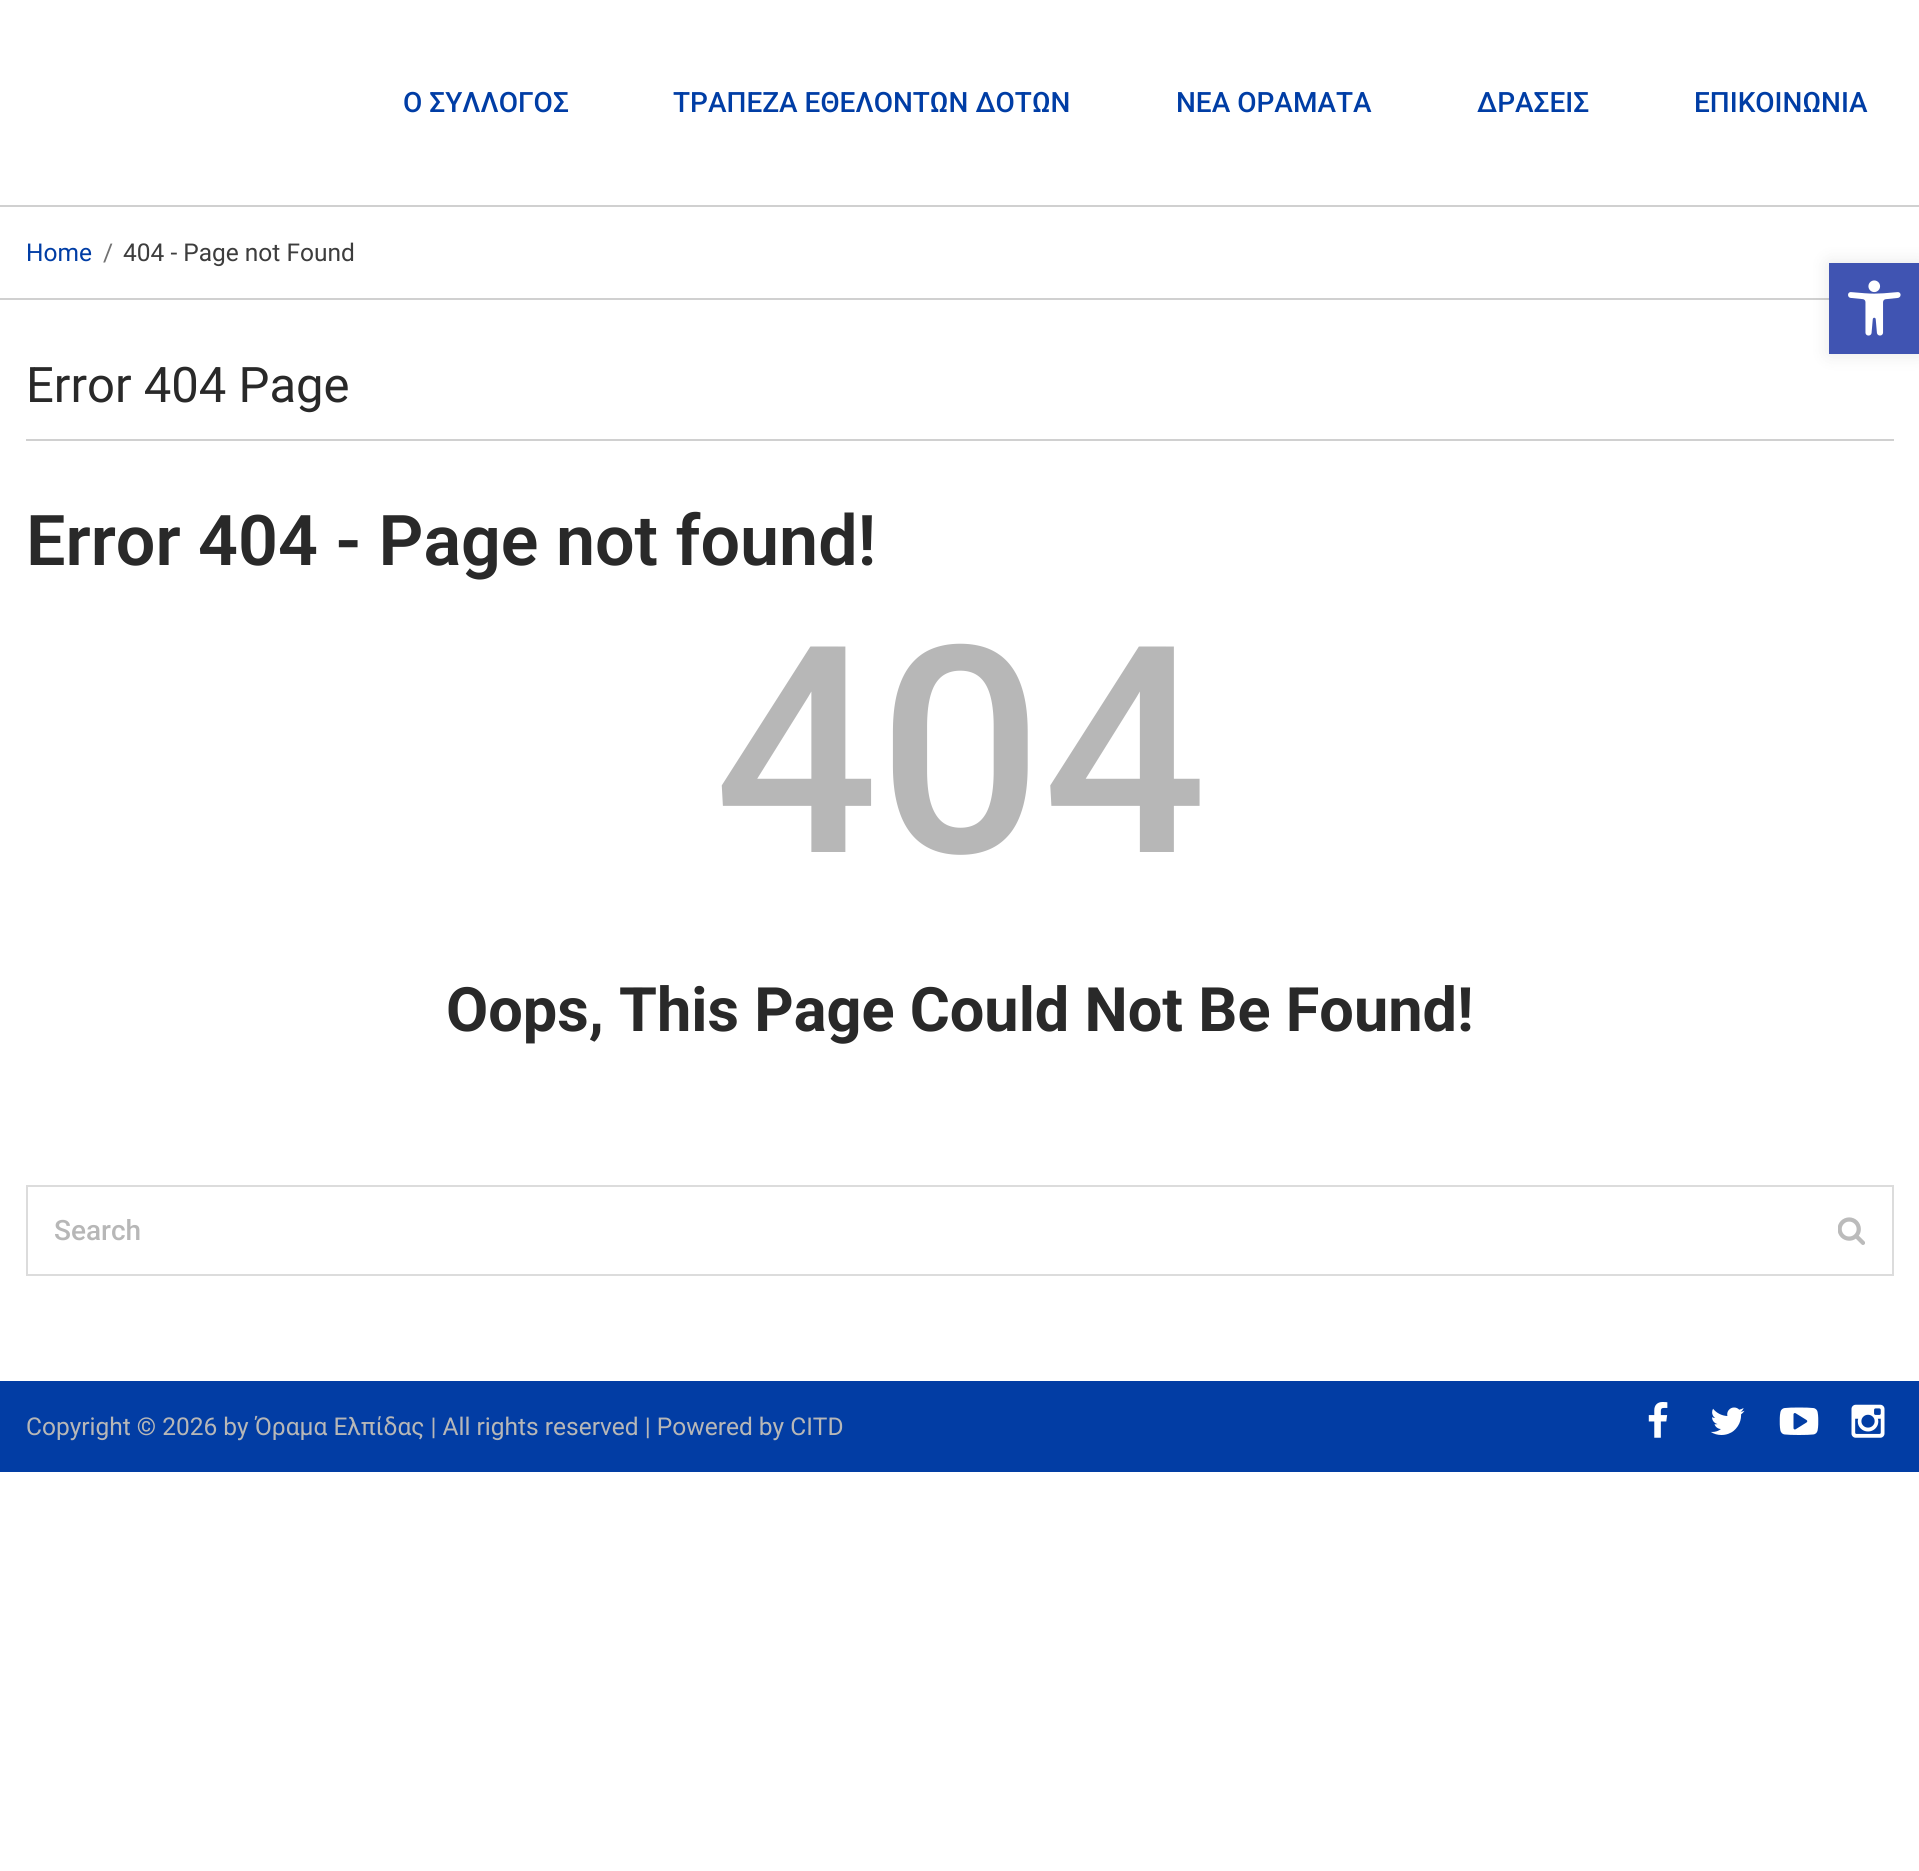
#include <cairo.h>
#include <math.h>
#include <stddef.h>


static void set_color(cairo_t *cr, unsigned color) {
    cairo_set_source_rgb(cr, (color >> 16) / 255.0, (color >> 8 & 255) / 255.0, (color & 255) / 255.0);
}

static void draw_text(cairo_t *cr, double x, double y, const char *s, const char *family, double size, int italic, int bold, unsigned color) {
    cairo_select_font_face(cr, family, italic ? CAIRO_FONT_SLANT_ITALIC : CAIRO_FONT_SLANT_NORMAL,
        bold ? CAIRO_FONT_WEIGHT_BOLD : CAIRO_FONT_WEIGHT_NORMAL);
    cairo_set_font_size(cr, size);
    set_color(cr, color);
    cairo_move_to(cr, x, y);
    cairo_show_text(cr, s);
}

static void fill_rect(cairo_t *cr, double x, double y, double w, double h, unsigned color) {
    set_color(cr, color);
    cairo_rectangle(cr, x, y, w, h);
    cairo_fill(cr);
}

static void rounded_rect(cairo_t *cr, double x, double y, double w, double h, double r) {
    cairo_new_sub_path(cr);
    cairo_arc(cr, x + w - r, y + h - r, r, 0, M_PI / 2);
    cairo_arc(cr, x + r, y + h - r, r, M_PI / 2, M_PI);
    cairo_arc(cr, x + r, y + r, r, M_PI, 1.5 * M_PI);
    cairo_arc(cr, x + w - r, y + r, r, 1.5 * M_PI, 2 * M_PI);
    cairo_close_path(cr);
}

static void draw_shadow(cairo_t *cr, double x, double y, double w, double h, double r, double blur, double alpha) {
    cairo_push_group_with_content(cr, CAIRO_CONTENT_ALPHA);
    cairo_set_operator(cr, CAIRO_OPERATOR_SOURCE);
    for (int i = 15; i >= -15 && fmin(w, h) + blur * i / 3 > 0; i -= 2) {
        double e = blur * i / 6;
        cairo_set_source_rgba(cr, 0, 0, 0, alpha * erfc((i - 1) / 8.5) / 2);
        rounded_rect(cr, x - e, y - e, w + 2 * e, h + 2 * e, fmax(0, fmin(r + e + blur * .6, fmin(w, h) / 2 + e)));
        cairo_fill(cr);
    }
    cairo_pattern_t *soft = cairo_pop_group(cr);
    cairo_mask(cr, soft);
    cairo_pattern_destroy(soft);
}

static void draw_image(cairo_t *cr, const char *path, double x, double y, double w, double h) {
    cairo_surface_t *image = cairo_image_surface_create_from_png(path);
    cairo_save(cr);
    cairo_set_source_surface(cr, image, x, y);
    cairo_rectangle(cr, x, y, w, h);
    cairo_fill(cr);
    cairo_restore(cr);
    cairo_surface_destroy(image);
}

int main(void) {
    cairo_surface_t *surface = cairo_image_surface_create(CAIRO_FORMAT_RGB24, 1919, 1871);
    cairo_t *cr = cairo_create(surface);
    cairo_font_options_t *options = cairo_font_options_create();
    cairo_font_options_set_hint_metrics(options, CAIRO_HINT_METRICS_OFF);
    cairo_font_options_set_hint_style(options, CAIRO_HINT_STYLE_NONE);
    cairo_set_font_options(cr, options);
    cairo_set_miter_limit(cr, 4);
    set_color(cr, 0xFFFFFF);
    cairo_paint(cr);
    fill_rect(cr, 0, 205, 1919, 2, 0xD0D0D0);
    draw_text(cr, 403, 112, "Ο ΣΥΛΛΟΓΟΣ", "Roboto Medium", 28, 0, 0, 0x003DA5);
    draw_text(cr, 673, 112, "ΤΡΑΠΕΖΑ ΕΘΕΛΟΝΤΩΝ ΔΟΤΩΝ", "Roboto Medium", 28, 0, 0, 0x003DA5);
    draw_text(cr, 1176, 112, "ΝΕΑ ΟΡΑΜΑΤΑ", "Roboto Medium", 28, 0, 0, 0x003DA5);
    draw_text(cr, 1477, 112, "ΔΡΑΣΕΙΣ", "Roboto Medium", 28, 0, 0, 0x003DA5);
    draw_text(cr, 1694, 112, "ΕΠΙΚΟΙΝΩΝΙΑ", "Roboto Medium", 28, 0, 0, 0x003DA5);
    fill_rect(cr, 0, 298, 1829, 2, 0xD0D0D0);
    draw_text(cr, 26, 261, "Home", "Roboto", 24.5, 0, 0, 0x003DA5);
    draw_text(cr, 103, 261, "/", "Roboto", 24.5, 0, 0, 0x717171);
    draw_text(cr, 123, 261, "404 - Page not Found", "Roboto", 24.5, 0, 0, 0x3D3D3D);
    fill_rect(cr, 26, 439, 1868, 2, 0xD0D0D0);
    draw_text(cr, 26, 402, "Error 404 Page", "Roboto", 49, 0, 0, 0x292929);
    draw_text(cr, 26, 565, "Error 404 - Page not found!", "Roboto SemiBold", 70, 0, 0, 0x292929);
    draw_text(cr, 714, 852, "404", "Roboto Medium", 289, 0, 0, 0xB7B7B7);
    draw_text(cr, 446, 1031, "Oops, This Page Could Not Be Found!", "Roboto", 61.25, 0, 1, 0x292929);
    cairo_rectangle(cr, 27, 1186, 1866, 89);
    set_color(cr, 0xDCDCDC);
    cairo_stroke(cr);
    draw_text(cr, 54, 1240, "Search", "Roboto Medium", 28, 0, 0, 0xB7B7B7);
    draw_image(cr, "assets/img1.png", 1838, 1217, 27, 28);
    fill_rect(cr, 0, 1381, 1919, 91, 0x023DA4);
    draw_text(cr, 26, 1435, "Copyright © 2026 by Όραμα Ελπίδας | All rights reserved | Powered by CITD", "Roboto", 24.5, 0, 0, 0xB7B7B7);
    draw_image(cr, "assets/img2.png", 1648, 1402, 20, 36);
    draw_image(cr, "assets/img3.png", 1710, 1407, 35, 28);
    draw_image(cr, "assets/img4.png", 1779, 1407, 40, 28);
    draw_image(cr, "assets/img5.png", 1851, 1404, 34, 34);
    set_color(cr, 0x000000);
    draw_shadow(cr, 1829, 263, 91, 91, 0, 9, 0.1);
    fill_rect(cr, 1829, 263, 90, 91, 0x4054B2);
    draw_image(cr, "assets/img6.png", 1848, 280, 53, 56);
    cairo_surface_write_to_png(surface, "output.png");
    cairo_font_options_destroy(options);
    cairo_destroy(cr);
    cairo_surface_destroy(surface);
    return 0;
}
